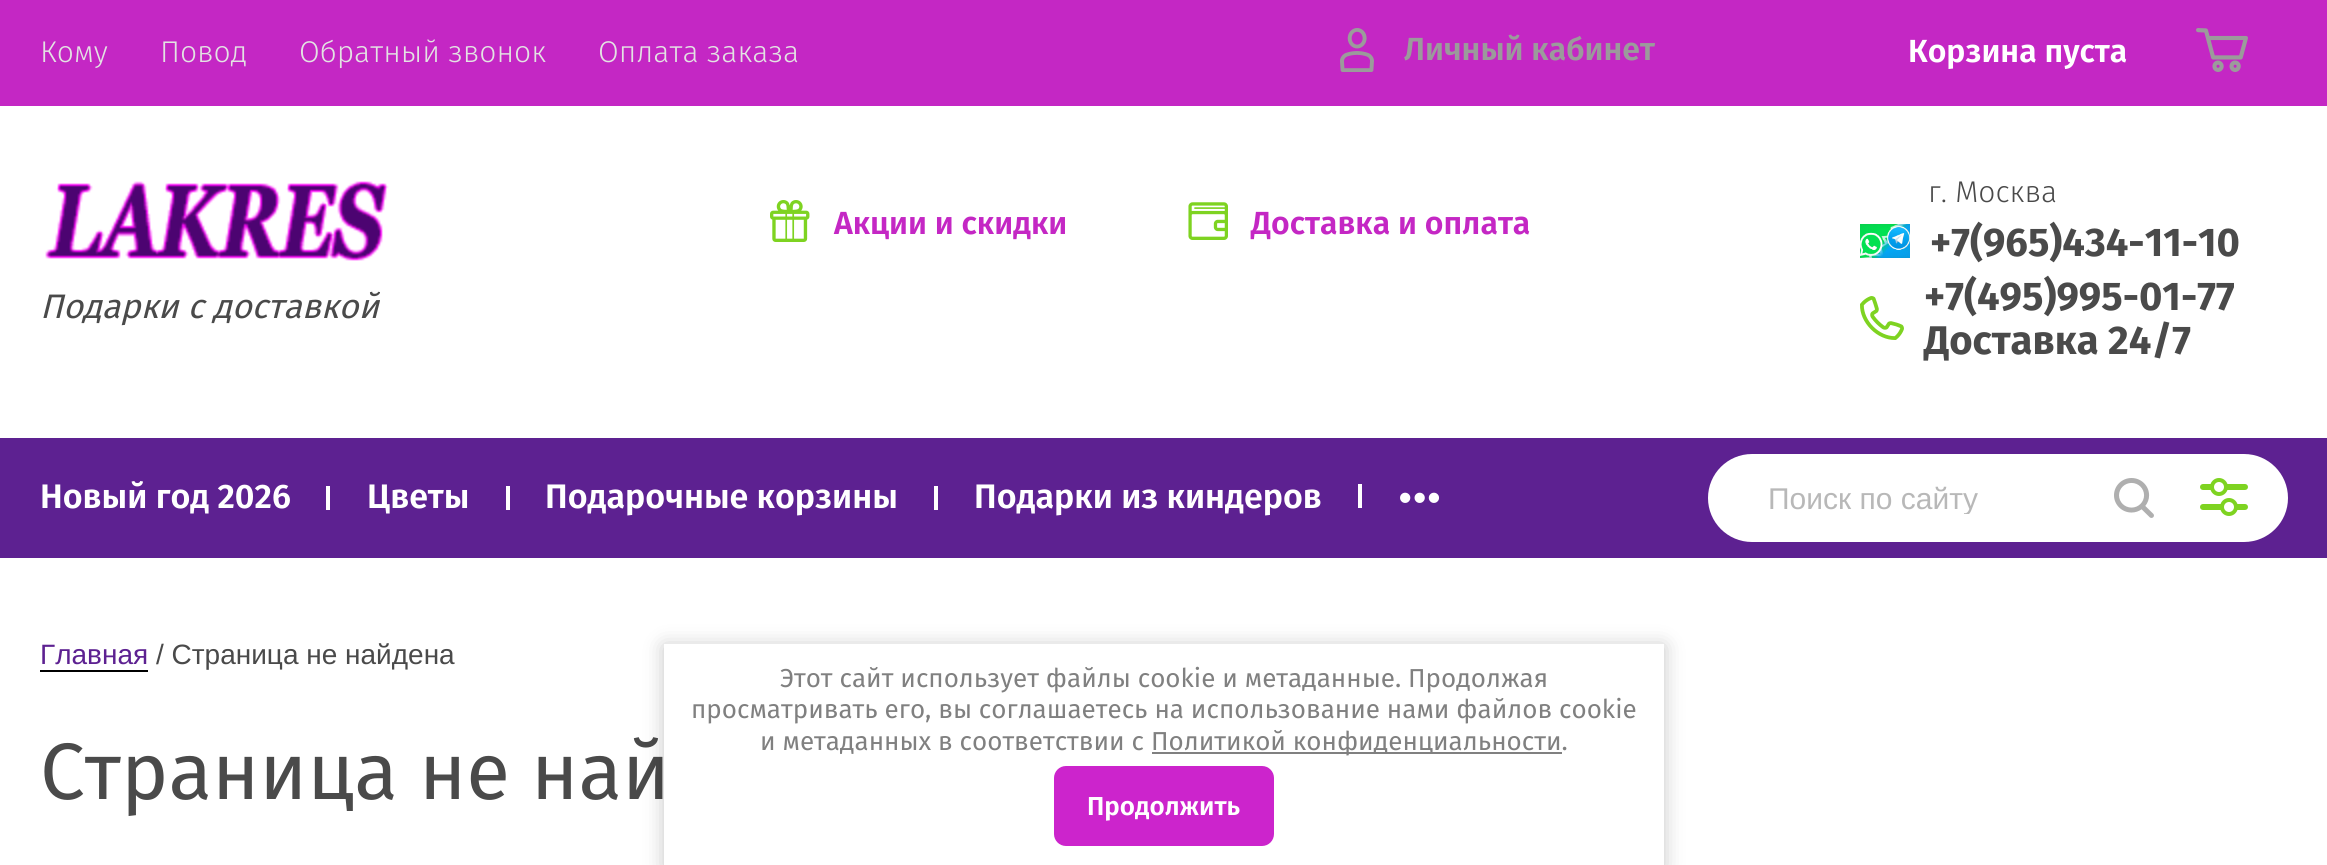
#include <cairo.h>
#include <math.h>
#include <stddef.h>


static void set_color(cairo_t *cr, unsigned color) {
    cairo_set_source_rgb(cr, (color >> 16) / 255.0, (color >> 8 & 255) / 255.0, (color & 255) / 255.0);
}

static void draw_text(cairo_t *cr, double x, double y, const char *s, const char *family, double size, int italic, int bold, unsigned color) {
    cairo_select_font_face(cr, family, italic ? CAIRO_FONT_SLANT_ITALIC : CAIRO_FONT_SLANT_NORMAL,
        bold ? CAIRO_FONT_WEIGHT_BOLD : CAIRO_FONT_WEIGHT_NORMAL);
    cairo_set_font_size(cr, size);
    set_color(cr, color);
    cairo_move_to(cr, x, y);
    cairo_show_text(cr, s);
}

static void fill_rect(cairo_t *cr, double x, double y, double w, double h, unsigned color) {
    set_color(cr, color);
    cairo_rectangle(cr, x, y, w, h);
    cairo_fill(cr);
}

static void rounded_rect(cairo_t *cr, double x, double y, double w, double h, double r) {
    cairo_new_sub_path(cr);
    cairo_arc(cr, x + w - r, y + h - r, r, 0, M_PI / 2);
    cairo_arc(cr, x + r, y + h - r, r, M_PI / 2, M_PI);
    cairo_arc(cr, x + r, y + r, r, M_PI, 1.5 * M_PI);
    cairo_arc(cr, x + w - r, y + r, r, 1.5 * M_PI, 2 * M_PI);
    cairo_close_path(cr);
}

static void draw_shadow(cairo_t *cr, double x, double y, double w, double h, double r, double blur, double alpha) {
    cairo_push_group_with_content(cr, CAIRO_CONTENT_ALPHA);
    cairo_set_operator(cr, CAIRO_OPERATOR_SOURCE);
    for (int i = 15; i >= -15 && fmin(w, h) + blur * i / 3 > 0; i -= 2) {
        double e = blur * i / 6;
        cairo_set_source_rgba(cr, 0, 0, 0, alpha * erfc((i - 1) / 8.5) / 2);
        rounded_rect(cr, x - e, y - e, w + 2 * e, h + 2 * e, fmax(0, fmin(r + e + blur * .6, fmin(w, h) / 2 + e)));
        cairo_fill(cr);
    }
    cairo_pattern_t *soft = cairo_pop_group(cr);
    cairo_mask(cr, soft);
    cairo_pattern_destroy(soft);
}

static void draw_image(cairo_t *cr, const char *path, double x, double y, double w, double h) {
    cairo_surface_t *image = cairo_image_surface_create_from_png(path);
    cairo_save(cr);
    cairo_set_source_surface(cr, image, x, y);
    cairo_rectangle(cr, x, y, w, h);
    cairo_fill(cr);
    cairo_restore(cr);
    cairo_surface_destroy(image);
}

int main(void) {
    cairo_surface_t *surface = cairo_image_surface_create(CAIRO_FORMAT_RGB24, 2327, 865);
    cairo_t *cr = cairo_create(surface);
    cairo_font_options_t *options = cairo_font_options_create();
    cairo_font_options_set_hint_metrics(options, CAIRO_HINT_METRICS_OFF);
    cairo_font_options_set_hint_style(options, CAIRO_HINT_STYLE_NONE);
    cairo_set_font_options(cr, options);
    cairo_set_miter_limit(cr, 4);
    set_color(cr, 0xFFFFFF);
    cairo_paint(cr);
    fill_rect(cr, 0, 0, 2327, 106, 0xC427C4);
    draw_text(cr, 40, 62, "Кому", "Fira Sans Light", 30, 0, 0, 0xE3E3E3);
    draw_text(cr, 160, 62, "Повод", "Fira Sans Light", 30, 0, 0, 0xE3E3E3);
    draw_text(cr, 299, 62, "Обратный звонок", "Fira Sans Light", 30, 0, 0, 0xE3E3E3);
    draw_text(cr, 598, 62, "Оплата заказа", "Fira Sans Light", 30, 0, 0, 0xE3E3E3);
    draw_image(cr, "assets/img1.png", 1340, 28, 34, 44);
    draw_text(cr, 1404, 60, "Личный кабинет", "Fira Sans SemiBold", 32, 0, 0, 0x9B9B9B);
    draw_image(cr, "assets/img2.png", 2196, 28, 52, 44);
    draw_text(cr, 1908, 62, "Корзина пуста", "Fira Sans SemiBold", 32, 0, 0, 0xFFFFFF);
    draw_image(cr, "assets/img3.png", 45, 181, 344, 80);
    draw_text(cr, 40, 318, "Подарки с доставкой", "Fira Sans", 34, 1, 0, 0x4A4A4A);
    draw_image(cr, "assets/img4.png", 770, 200, 40, 42);
    draw_text(cr, 834, 234, "Акции и скидки", "Fira Sans SemiBold", 32, 0, 0, 0xC427C4);
    draw_image(cr, "assets/img5.png", 1188, 202, 40, 38);
    draw_text(cr, 1251, 234, "Доставка и оплата", "Fira Sans SemiBold", 32, 0, 0, 0xC427C4);
    draw_text(cr, 1928, 202, "г. Москва", "Fira Sans Light", 30, 0, 0, 0x4A4A4A);
    draw_image(cr, "assets/img6.png", 1860, 224, 50, 34);
    draw_text(cr, 1930, 256, "+7(965)434-11-10", "Fira Sans", 40, 0, 1, 0x4A4A4A);
    draw_image(cr, "assets/img7.png", 1860, 296, 44, 44);
    draw_text(cr, 1924, 310, "+7(495)995-01-77", "Fira Sans", 40, 0, 1, 0x4A4A4A);
    draw_text(cr, 1924, 354, "Доставка 24/7", "Fira Sans", 40, 0, 1, 0x4A4A4A);
    fill_rect(cr, 0, 438, 2327, 120, 0x5D2191);
    draw_text(cr, 40, 508, "Новый год 2026", "Fira Sans SemiBold", 34, 0, 0, 0xFFFFFF);
    fill_rect(cr, 326, 486, 4, 24, 0xFFFFFF);
    draw_text(cr, 367, 508, "Цветы", "Fira Sans SemiBold", 34, 0, 0, 0xFFFFFF);
    fill_rect(cr, 506, 486, 4, 24, 0xFFFFFF);
    draw_text(cr, 545, 508, "Подарочные корзины", "Fira Sans SemiBold", 34, 0, 0, 0xFFFFFF);
    fill_rect(cr, 934, 486, 4, 24, 0xFFFFFF);
    draw_text(cr, 974, 508, "Подарки из киндеров", "Fira Sans SemiBold", 34, 0, 0, 0xFFFFFF);
    fill_rect(cr, 1358, 484, 4, 24, 0xFFFFFF);
    draw_text(cr, 1398, 502, "...", "Fira Sans SemiBold", 60, 0, 0, 0xFFFFFF);
    rounded_rect(cr, 1708, 454, 580, 88, 44);
    cairo_fill(cr);
    cairo_save(cr);
    cairo_rectangle(cr, 1768, 480, 330, 34);
    cairo_clip(cr);
    draw_text(cr, 1768, 509, "Поиск по сайту", "Liberation Sans", 30, 0, 0, 0xB8B8B8);
    cairo_restore(cr);
    draw_image(cr, "assets/img8.png", 2114, 478, 40, 40);
    draw_image(cr, "assets/img9.png", 2200, 478, 48, 38);
    draw_text(cr, 40, 664, "Главная", "Liberation Sans", 28, 0, 0, 0x5D2191);
    fill_rect(cr, 40, 670, 108, 2, 0x000000);
    draw_text(cr, 156, 664, "/ Страница не найдена", "Liberation Sans", 28, 0, 0, 0x4A4A4A);
    draw_text(cr, 40, 799, "Страница не най", "Fira Sans", 80, 0, 0, 0x4A4A4A);
    set_color(cr, 0x000000);
    draw_shadow(cr, 664, 646, 1000, 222, 0, 10, 0.23);
    fill_rect(cr, 664, 644, 1000, 221, 0xFFFFFF);
    draw_text(cr, 780, 687, "Этот сайт использует файлы cookie и метаданные. Продолжая", "Fira Sans", 26, 0, 0, 0x808080);
    draw_text(cr, 691, 718, "просматривать его, вы соглашаетесь на использование нами файлов cookie", "Fira Sans", 26, 0, 0, 0x808080);
    draw_text(cr, 760, 750, "и метаданных в соответствии с", "Fira Sans", 26, 0, 0, 0x808080);
    fill_rect(cr, 1152, 752, 410, 2, 0x808080);
    draw_text(cr, 1151, 750, "Политикой конфиденциальности.", "Fira Sans", 26, 0, 0, 0x808080);
    set_color(cr, 0xCC24CC);
    rounded_rect(cr, 1054, 766, 220, 80, 12);
    cairo_fill(cr);
    draw_text(cr, 1087, 815, "Продолжить", "Fira Sans SemiBold", 26, 0, 0, 0xFFFFFF);
    cairo_surface_write_to_png(surface, "output.png");
    cairo_font_options_destroy(options);
    cairo_destroy(cr);
    cairo_surface_destroy(surface);
    return 0;
}
